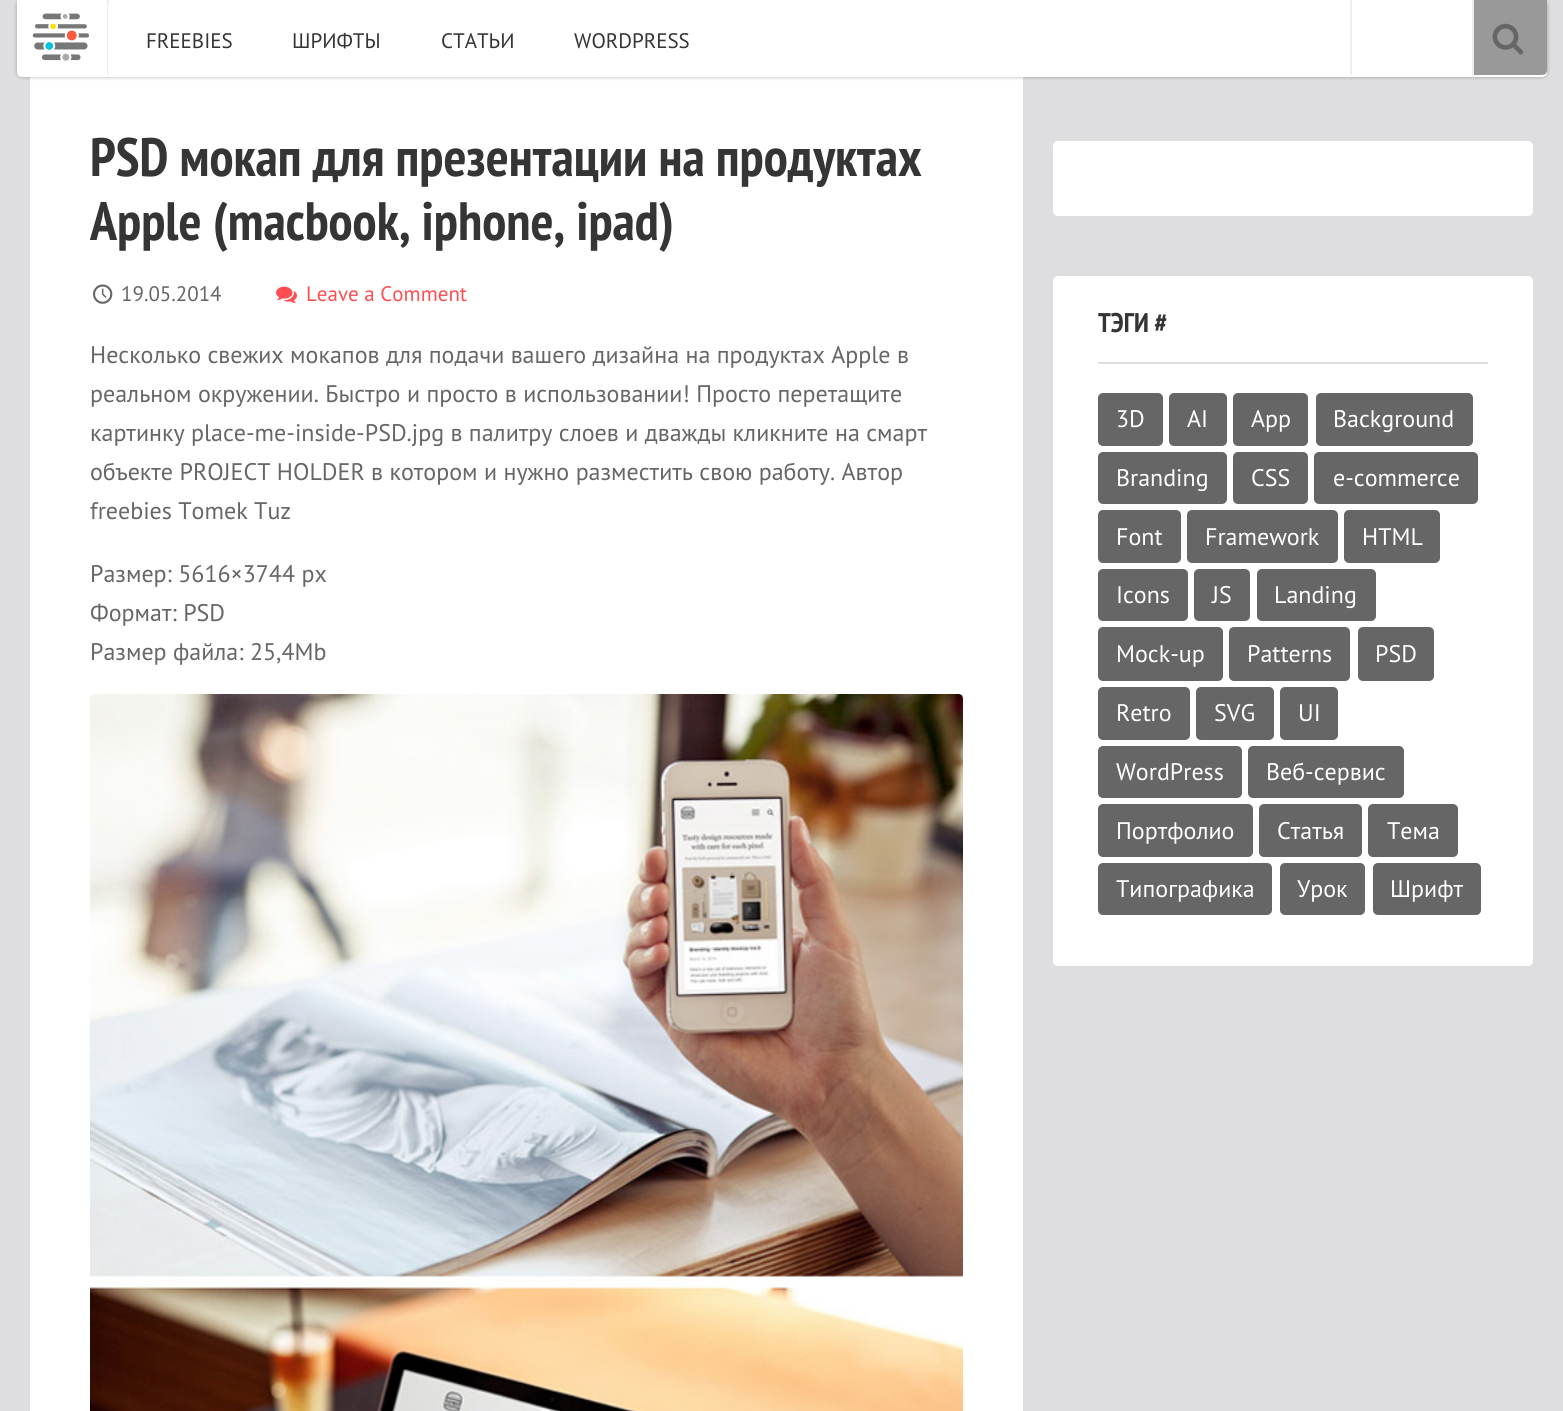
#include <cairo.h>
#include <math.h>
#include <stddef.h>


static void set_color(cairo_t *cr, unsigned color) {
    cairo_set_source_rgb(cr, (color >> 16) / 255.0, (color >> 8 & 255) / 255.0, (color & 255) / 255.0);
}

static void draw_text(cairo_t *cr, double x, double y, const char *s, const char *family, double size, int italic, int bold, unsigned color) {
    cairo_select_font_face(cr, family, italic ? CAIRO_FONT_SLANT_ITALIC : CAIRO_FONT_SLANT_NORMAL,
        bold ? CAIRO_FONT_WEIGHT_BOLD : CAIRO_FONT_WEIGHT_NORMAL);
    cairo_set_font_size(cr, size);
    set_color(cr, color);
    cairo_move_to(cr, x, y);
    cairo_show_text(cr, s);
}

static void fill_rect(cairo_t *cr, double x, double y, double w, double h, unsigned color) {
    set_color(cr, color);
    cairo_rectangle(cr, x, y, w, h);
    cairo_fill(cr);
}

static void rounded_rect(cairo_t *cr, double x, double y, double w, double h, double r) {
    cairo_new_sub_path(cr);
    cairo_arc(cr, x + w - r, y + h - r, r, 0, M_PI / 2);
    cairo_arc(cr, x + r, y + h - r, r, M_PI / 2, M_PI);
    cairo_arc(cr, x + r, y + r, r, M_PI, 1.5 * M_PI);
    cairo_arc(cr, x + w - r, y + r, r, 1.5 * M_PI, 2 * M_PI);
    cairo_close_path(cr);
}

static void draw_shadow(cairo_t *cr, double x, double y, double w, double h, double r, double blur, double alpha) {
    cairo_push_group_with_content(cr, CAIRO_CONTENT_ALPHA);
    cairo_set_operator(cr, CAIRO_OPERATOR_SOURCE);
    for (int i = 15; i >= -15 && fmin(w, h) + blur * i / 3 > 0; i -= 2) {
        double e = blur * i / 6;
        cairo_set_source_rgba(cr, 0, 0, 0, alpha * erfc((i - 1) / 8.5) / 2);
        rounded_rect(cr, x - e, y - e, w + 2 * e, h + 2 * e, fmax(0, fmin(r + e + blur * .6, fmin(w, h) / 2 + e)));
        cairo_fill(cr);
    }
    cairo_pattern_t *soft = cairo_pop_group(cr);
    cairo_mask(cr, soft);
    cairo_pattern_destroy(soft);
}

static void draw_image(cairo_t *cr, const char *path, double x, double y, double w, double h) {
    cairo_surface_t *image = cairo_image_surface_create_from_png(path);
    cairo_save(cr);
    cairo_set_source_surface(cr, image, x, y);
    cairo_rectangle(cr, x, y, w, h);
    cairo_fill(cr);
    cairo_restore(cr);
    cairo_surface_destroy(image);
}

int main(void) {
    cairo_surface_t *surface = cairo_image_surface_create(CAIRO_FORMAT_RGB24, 1563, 1411);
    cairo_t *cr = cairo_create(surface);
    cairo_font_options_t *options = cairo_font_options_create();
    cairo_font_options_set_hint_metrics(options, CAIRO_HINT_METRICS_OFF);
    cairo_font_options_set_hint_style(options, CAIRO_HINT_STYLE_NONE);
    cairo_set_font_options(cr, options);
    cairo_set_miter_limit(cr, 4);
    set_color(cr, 0xDEDEE0);
    cairo_paint(cr);
    fill_rect(cr, 30, 77, 993, 1334, 0xFFFFFF);
    set_color(cr, 0x000000);
    draw_shadow(cr, 17, 0, 1530, 77, 5, 2, 0.3);
    set_color(cr, 0xFFFFFF);
    cairo_new_path(cr);
    cairo_move_to(cr, 17, 0);
    cairo_line_to(cr, 1547, 0);
    cairo_line_to(cr, 1547, 72);
    cairo_curve_to(cr, 1547, 75, 1545, 77, 1542, 77);
    cairo_line_to(cr, 22, 77);
    cairo_curve_to(cr, 19, 77, 17, 75, 17, 72);
    cairo_close_path(cr);
    cairo_fill(cr);
    fill_rect(cr, 107, 0, 2, 75, 0xEEEEEE);
    draw_image(cr, "assets/img1.png", 32, 13, 57, 48);
    set_color(cr, 0xFFFFFF);
    rounded_rect(cr, 108, 0, 627, 77, 5);
    cairo_fill(cr);
    draw_text(cr, 146, 48, "FREEBIES", "PT Sans", 21, 0, 0, 0x353535);
    draw_text(cr, 292, 48, "ШРИФТЫ", "PT Sans", 21, 0, 0, 0x353535);
    draw_text(cr, 441, 48, "СТАТЬИ", "PT Sans", 21, 0, 0, 0x353535);
    draw_text(cr, 574, 48, "WORDPRESS", "PT Sans", 21, 0, 0, 0x353535);
    fill_rect(cr, 1350, 0, 2, 75, 0xEEEEEE);
    set_color(cr, 0x999999);
    cairo_new_path(cr);
    cairo_move_to(cr, 1472, 0);
    cairo_line_to(cr, 1547, 0);
    cairo_line_to(cr, 1547, 70);
    cairo_curve_to(cr, 1547, 73, 1545, 75, 1542, 75);
    cairo_line_to(cr, 1472, 75);
    cairo_close_path(cr);
    cairo_fill(cr);
    fill_rect(cr, 1472, 0, 2, 75, 0xEEEEEE);
    draw_image(cr, "assets/img2.png", 1492, 23, 32, 32);
    draw_text(cr, 90, 176, "PSD мокап для презентации на продуктах", "PT Sans Narrow", 54, 0, 1, 0x353535);
    draw_text(cr, 90, 240, "Apple (macbook, iphone, ipad)", "PT Sans Narrow", 54, 0, 1, 0x353535);
    draw_image(cr, "assets/img3.png", 93, 284, 20, 20);
    draw_text(cr, 121, 301, "19.05.2014", "PT Sans", 21, 0, 0, 0x666666);
    draw_image(cr, "assets/img4.png", 276, 286, 21, 18);
    draw_text(cr, 306, 301, "Leave a Comment", "PT Sans", 21, 0, 0, 0xFF4D51);
    draw_text(cr, 90, 363, "Несколько свежих мокапов для подачи вашего дизайна на продуктах Apple в", "PT Sans", 24, 0, 0, 0x666666);
    draw_text(cr, 90, 402, "реальном окружении. Быстро и просто в использовании! Просто перетащите", "PT Sans", 24, 0, 0, 0x666666);
    draw_text(cr, 90, 441, "картинку place-me-inside-PSD.jpg в палитру слоев и дважды кликните на смарт", "PT Sans", 24, 0, 0, 0x666666);
    draw_text(cr, 90, 480, "объекте PROJECT HOLDER в котором и нужно разместить свою работу. Автор", "PT Sans", 24, 0, 0, 0x666666);
    draw_text(cr, 90, 519, "freebies Tomek Tuz", "PT Sans", 24, 0, 0, 0x666666);
    draw_text(cr, 90, 582, "Размер: 5616×3744 px", "PT Sans", 24, 0, 0, 0x666666);
    draw_text(cr, 90, 621, "Формат: PSD", "PT Sans", 24, 0, 0, 0x666666);
    draw_text(cr, 90, 660, "Размер файла: 25,4Mb", "PT Sans", 24, 0, 0, 0x666666);
    draw_image(cr, "assets/img5.png", 90, 694, 873, 717);
    set_color(cr, 0xFFFFFF);
    rounded_rect(cr, 1053, 141, 480, 75, 5);
    cairo_fill(cr);
    rounded_rect(cr, 1053, 276, 480, 690, 5);
    cairo_fill(cr);
    fill_rect(cr, 1098, 362, 390, 2, 0xDEDEE0);
    draw_text(cr, 1098, 332, "ТЭГИ #", "PT Sans Narrow", 27, 0, 1, 0x353535);
    set_color(cr, 0x666666);
    rounded_rect(cr, 1098, 393, 65, 53, 5);
    cairo_fill(cr);
    draw_text(cr, 1116, 427, "3D", "PT Sans", 24, 0, 0, 0xFFFFFF);
    set_color(cr, 0x666666);
    rounded_rect(cr, 1169, 393, 58, 53, 5);
    cairo_fill(cr);
    draw_text(cr, 1187, 427, "AI", "PT Sans", 24, 0, 0, 0xFFFFFF);
    set_color(cr, 0x666666);
    rounded_rect(cr, 1233, 393, 75, 53, 5);
    cairo_fill(cr);
    draw_text(cr, 1251, 427, "App", "PT Sans", 24, 0, 0, 0xFFFFFF);
    set_color(cr, 0x666666);
    rounded_rect(cr, 1316, 393, 157, 53, 5);
    cairo_fill(cr);
    draw_text(cr, 1333, 427, "Background", "PT Sans", 24, 0, 0, 0xFFFFFF);
    set_color(cr, 0x666666);
    rounded_rect(cr, 1098, 452, 129, 52, 5);
    cairo_fill(cr);
    draw_text(cr, 1116, 486, "Branding", "PT Sans", 24, 0, 0, 0xFFFFFF);
    set_color(cr, 0x666666);
    rounded_rect(cr, 1233, 452, 75, 52, 5);
    cairo_fill(cr);
    draw_text(cr, 1251, 486, "CSS", "PT Sans", 24, 0, 0, 0xFFFFFF);
    set_color(cr, 0x666666);
    rounded_rect(cr, 1314, 452, 164, 52, 5);
    cairo_fill(cr);
    draw_text(cr, 1333, 486, "e-commerce", "PT Sans", 24, 0, 0, 0xFFFFFF);
    set_color(cr, 0x666666);
    rounded_rect(cr, 1098, 510, 83, 53, 5);
    cairo_fill(cr);
    draw_text(cr, 1116, 545, "Font", "PT Sans", 24, 0, 0, 0xFFFFFF);
    set_color(cr, 0x666666);
    rounded_rect(cr, 1187, 510, 151, 53, 5);
    cairo_fill(cr);
    draw_text(cr, 1205, 545, "Framework", "PT Sans", 24, 0, 0, 0xFFFFFF);
    set_color(cr, 0x666666);
    rounded_rect(cr, 1344, 510, 96, 53, 5);
    cairo_fill(cr);
    draw_text(cr, 1362, 545, "HTML", "PT Sans", 24, 0, 0, 0xFFFFFF);
    set_color(cr, 0x666666);
    rounded_rect(cr, 1098, 569, 90, 52, 5);
    cairo_fill(cr);
    draw_text(cr, 1116, 603, "Icons", "PT Sans", 24, 0, 0, 0xFFFFFF);
    set_color(cr, 0x666666);
    rounded_rect(cr, 1194, 569, 56, 52, 5);
    cairo_fill(cr);
    draw_text(cr, 1212, 603, "JS", "PT Sans", 24, 0, 0, 0xFFFFFF);
    set_color(cr, 0x666666);
    rounded_rect(cr, 1257, 569, 119, 52, 5);
    cairo_fill(cr);
    draw_text(cr, 1274, 603, "Landing", "PT Sans", 24, 0, 0, 0xFFFFFF);
    set_color(cr, 0x666666);
    rounded_rect(cr, 1098, 627, 125, 54, 5);
    cairo_fill(cr);
    draw_text(cr, 1116, 662, "Mock-up", "PT Sans", 24, 0, 0, 0xFFFFFF);
    set_color(cr, 0x666666);
    rounded_rect(cr, 1229, 627, 121, 54, 5);
    cairo_fill(cr);
    draw_text(cr, 1247, 662, "Patterns", "PT Sans", 24, 0, 0, 0xFFFFFF);
    set_color(cr, 0x666666);
    rounded_rect(cr, 1358, 627, 76, 54, 5);
    cairo_fill(cr);
    draw_text(cr, 1375, 662, "PSD", "PT Sans", 24, 0, 0, 0xFFFFFF);
    set_color(cr, 0x666666);
    rounded_rect(cr, 1098, 687, 92, 53, 5);
    cairo_fill(cr);
    draw_text(cr, 1116, 721, "Retro", "PT Sans", 24, 0, 0, 0xFFFFFF);
    set_color(cr, 0x666666);
    rounded_rect(cr, 1196, 687, 78, 53, 5);
    cairo_fill(cr);
    draw_text(cr, 1214, 721, "SVG", "PT Sans", 24, 0, 0, 0xFFFFFF);
    set_color(cr, 0x666666);
    rounded_rect(cr, 1280, 687, 58, 53, 5);
    cairo_fill(cr);
    draw_text(cr, 1298, 721, "UI", "PT Sans", 24, 0, 0, 0xFFFFFF);
    set_color(cr, 0x666666);
    rounded_rect(cr, 1098, 746, 144, 52, 5);
    cairo_fill(cr);
    draw_text(cr, 1116, 780, "WordPress", "PT Sans", 24, 0, 0, 0xFFFFFF);
    set_color(cr, 0x666666);
    rounded_rect(cr, 1248, 746, 156, 52, 5);
    cairo_fill(cr);
    draw_text(cr, 1266, 780, "Веб-сервис", "PT Sans", 24, 0, 0, 0xFFFFFF);
    set_color(cr, 0x666666);
    rounded_rect(cr, 1098, 804, 155, 53, 5);
    cairo_fill(cr);
    draw_text(cr, 1116, 839, "Портфолио", "PT Sans", 24, 0, 0, 0xFFFFFF);
    set_color(cr, 0x666666);
    rounded_rect(cr, 1259, 804, 103, 53, 5);
    cairo_fill(cr);
    draw_text(cr, 1277, 839, "Статья", "PT Sans", 24, 0, 0, 0xFFFFFF);
    set_color(cr, 0x666666);
    rounded_rect(cr, 1368, 804, 90, 53, 5);
    cairo_fill(cr);
    draw_text(cr, 1387, 839, "Тема", "PT Sans", 24, 0, 0, 0xFFFFFF);
    set_color(cr, 0x666666);
    rounded_rect(cr, 1098, 863, 174, 52, 5);
    cairo_fill(cr);
    draw_text(cr, 1116, 897, "Типографика", "PT Sans", 24, 0, 0, 0xFFFFFF);
    set_color(cr, 0x666666);
    rounded_rect(cr, 1280, 863, 85, 52, 5);
    cairo_fill(cr);
    draw_text(cr, 1297, 897, "Урок", "PT Sans", 24, 0, 0, 0xFFFFFF);
    set_color(cr, 0x666666);
    rounded_rect(cr, 1373, 863, 108, 52, 5);
    cairo_fill(cr);
    draw_text(cr, 1390, 897, "Шрифт", "PT Sans", 24, 0, 0, 0xFFFFFF);
    cairo_surface_write_to_png(surface, "output.png");
    cairo_font_options_destroy(options);
    cairo_destroy(cr);
    cairo_surface_destroy(surface);
    return 0;
}
